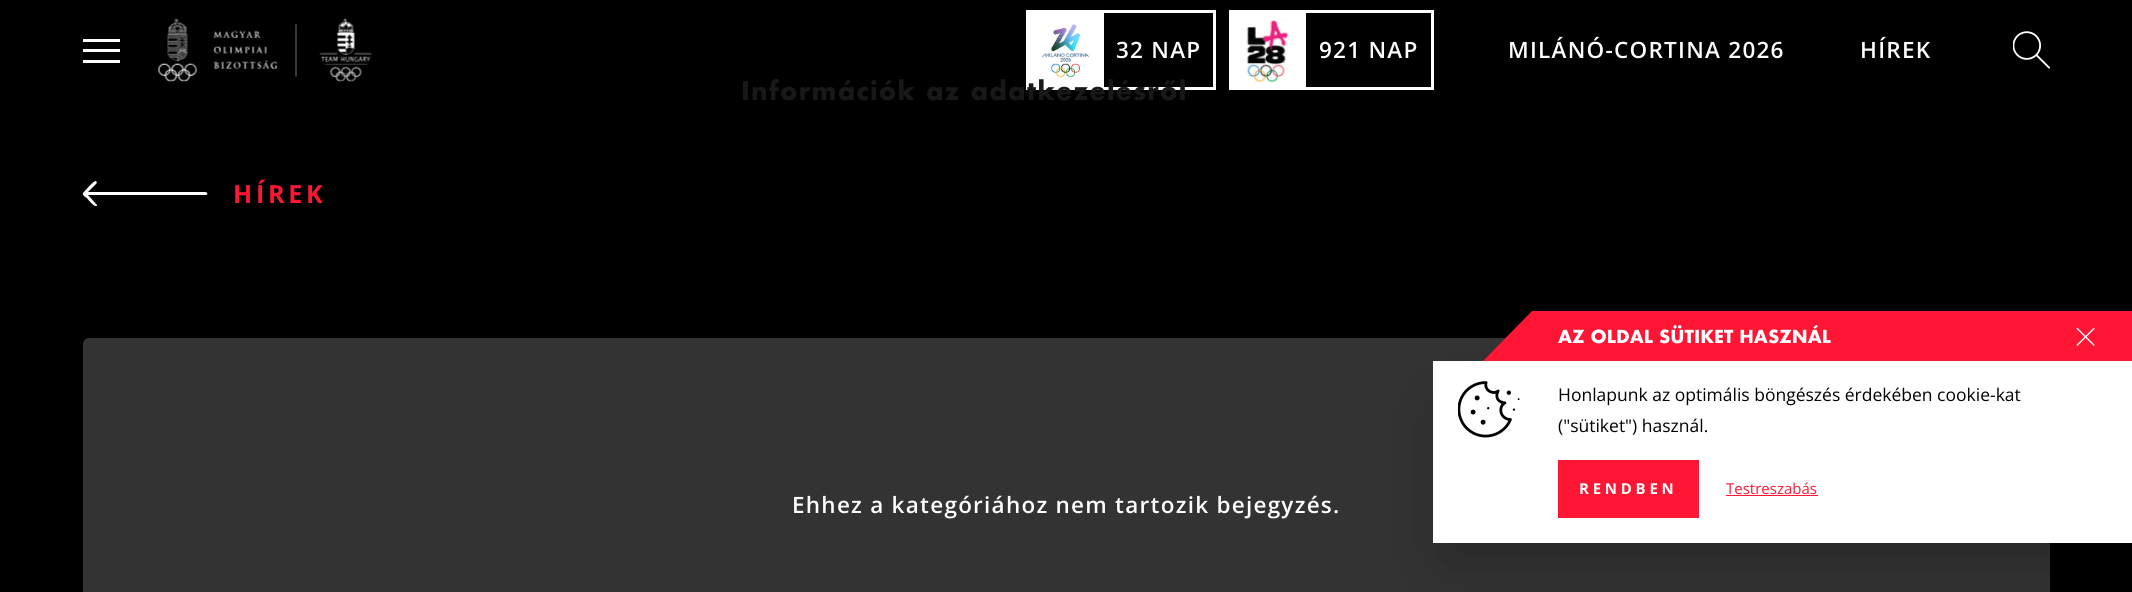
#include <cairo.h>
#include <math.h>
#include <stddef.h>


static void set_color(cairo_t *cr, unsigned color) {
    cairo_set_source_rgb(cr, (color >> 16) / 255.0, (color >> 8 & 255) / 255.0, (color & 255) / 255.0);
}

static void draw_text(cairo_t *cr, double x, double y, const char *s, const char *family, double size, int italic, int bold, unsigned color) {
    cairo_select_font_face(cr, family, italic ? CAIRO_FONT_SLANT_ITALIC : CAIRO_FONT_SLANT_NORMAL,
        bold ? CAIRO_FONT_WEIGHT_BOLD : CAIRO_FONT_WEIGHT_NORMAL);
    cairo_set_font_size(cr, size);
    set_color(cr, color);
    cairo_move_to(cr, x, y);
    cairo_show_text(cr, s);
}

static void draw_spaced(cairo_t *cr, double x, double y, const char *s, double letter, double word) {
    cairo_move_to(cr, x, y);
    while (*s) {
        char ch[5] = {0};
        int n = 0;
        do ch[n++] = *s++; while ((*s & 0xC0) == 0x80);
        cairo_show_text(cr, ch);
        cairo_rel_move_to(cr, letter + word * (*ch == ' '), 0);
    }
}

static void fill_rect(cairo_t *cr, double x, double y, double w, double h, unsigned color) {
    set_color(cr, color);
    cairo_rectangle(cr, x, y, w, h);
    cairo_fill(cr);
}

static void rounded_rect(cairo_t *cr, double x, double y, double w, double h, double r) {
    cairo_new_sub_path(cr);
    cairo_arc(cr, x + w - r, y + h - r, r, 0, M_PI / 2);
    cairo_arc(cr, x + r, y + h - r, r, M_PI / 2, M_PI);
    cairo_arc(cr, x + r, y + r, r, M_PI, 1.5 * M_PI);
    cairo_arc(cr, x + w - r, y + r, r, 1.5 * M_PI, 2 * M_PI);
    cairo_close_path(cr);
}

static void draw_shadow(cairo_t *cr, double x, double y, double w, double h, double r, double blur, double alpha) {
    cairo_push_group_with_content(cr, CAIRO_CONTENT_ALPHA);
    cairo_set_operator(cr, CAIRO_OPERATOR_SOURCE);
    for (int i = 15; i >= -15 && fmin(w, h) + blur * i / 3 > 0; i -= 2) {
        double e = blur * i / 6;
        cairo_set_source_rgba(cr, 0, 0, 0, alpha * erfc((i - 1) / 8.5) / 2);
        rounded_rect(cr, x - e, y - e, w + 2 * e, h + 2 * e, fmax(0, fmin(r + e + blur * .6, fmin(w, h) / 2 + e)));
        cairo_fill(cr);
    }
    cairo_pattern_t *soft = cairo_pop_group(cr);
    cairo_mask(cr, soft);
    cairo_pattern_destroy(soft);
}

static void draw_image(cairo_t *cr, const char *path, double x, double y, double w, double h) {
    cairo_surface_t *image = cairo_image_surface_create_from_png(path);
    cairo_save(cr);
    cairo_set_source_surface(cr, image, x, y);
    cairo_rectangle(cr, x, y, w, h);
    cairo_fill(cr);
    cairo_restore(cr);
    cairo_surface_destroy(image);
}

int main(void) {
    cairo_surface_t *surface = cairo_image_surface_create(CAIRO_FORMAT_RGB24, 2132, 592);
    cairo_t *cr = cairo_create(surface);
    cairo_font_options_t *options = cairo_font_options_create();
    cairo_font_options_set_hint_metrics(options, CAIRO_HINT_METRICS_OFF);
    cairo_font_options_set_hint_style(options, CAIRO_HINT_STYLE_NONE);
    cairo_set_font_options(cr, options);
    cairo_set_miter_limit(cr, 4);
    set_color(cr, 0x000000);
    cairo_paint(cr);
    fill_rect(cr, 83, 39, 37, 3, 0xFFFFFF);
    fill_rect(cr, 83, 49, 37, 3, 0xFFFFFF);
    fill_rect(cr, 83, 60, 37, 3, 0xFFFFFF);
    draw_image(cr, "assets/img1.png", 158, 18, 214, 64);
    cairo_rectangle(cr, 1027.5, 11.5, 187, 77);
    cairo_set_line_width(cr, 3);
    cairo_stroke(cr);
    fill_rect(cr, 1029, 13, 75, 74, 0xFFFFFF);
    draw_image(cr, "assets/img2.png", 1041, 24, 49, 54);
    cairo_select_font_face(cr, "Open Sans SemiBold", CAIRO_FONT_SLANT_NORMAL, CAIRO_FONT_WEIGHT_NORMAL);
    cairo_set_font_size(cr, 22.5);
    draw_spaced(cr, 1116, 58, "32 NAP", 1.25, 0);
    cairo_rectangle(cr, 1230.5, 11.5, 202, 77);
    cairo_stroke(cr);
    fill_rect(cr, 1232, 13, 74, 74, 0xFFFFFF);
    draw_image(cr, "assets/img3.png", 1246, 19, 43, 64);
    draw_spaced(cr, 1319, 58, "921 NAP", 1.25, 0);
    draw_spaced(cr, 1508, 58, "MILÁNÓ-CORTINA 2026", 1.25, 0);
    draw_spaced(cr, 1860, 58, "HÍREK", 1.25, 0);
    draw_image(cr, "assets/img4.png", 2013, 31, 37, 38);
    cairo_select_font_face(cr, "Futura", CAIRO_FONT_SLANT_NORMAL, CAIRO_FONT_WEIGHT_BOLD);
    cairo_set_font_size(cr, 25);
    set_color(cr, 0x181818);
    draw_spaced(cr, 741, 100, "Információk az adatkezelésről", 1.25, 0);
    cairo_save(cr);
    cairo_rectangle(cr, 83, 181, 125, 25);
    cairo_clip(cr);
    set_color(cr, 0xFFFFFF);
    cairo_new_path(cr);
    cairo_move_to(cr, 83, 193);
    cairo_curve_to(cr, 82, 195, 86, 198, 87, 198);
    cairo_curve_to(cr, 88, 200, 97, 210, 97, 205);
    cairo_line_to(cr, 88, 195);
    cairo_line_to(cr, 206, 195);
    cairo_curve_to(cr, 207, 195, 208, 194, 207, 193);
    cairo_line_to(cr, 206, 192);
    cairo_line_to(cr, 88, 192);
    cairo_line_to(cr, 96, 184);
    cairo_curve_to(cr, 97, 183, 97, 182, 96, 181);
    cairo_curve_to(cr, 94, 180, 84, 192, 83, 193);
    cairo_close_path(cr);
    cairo_fill(cr);
    cairo_restore(cr);
    cairo_select_font_face(cr, "Open Sans", CAIRO_FONT_SLANT_NORMAL, CAIRO_FONT_WEIGHT_BOLD);
    set_color(cr, 0xFF1634);
    draw_spaced(cr, 233, 203, "HÍREK", 3.75, 0);
    set_color(cr, 0x333333);
    rounded_rect(cr, 83, 338, 1967, 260, 6);
    cairo_fill(cr);
    cairo_select_font_face(cr, "Open Sans SemiBold", CAIRO_FONT_SLANT_NORMAL, CAIRO_FONT_WEIGHT_NORMAL);
    cairo_set_font_size(cr, 22.5);
    set_color(cr, 0xFFFFFF);
    draw_spaced(cr, 792, 513, "Ehhez a kategóriához nem tartozik bejegyzés.", 1.25, 0);
    set_color(cr, 0x000000);
    draw_shadow(cr, 1448, 408, 670, 151, 0, 31, 0.25);
    set_color(cr, 0xFF1634);
    cairo_new_path(cr);
    cairo_move_to(cr, 1532, 311);
    cairo_line_to(cr, 2132, 311);
    cairo_line_to(cr, 2132, 361);
    cairo_line_to(cr, 1483, 361);
    cairo_close_path(cr);
    cairo_fill(cr);
    draw_text(cr, 1558, 343, "AZ OLDAL SÜTIKET HASZNÁL", "Futura", 17.5, 0, 1, 0xFFFFFF);
    draw_image(cr, "assets/img5.png", 2076, 328, 19, 18);
    fill_rect(cr, 1433, 361, 699, 182, 0xFFFFFF);
    draw_image(cr, "assets/img6.png", 1458, 381, 62, 57);
    draw_text(cr, 1558, 401, "Honlapunk az optimális böngészés érdekében cookie-kat", "Open Sans", 17.5, 0, 0, 0x000000);
    draw_text(cr, 1558, 432, "(\"sütiket\") használ.", "Open Sans", 17.5, 0, 0, 0x000000);
    fill_rect(cr, 1558, 460, 141, 58, 0xFF1634);
    cairo_select_font_face(cr, "Open Sans", CAIRO_FONT_SLANT_NORMAL, CAIRO_FONT_WEIGHT_BOLD);
    cairo_set_font_size(cr, 15);
    set_color(cr, 0xFFFFFF);
    draw_spaced(cr, 1579, 494, "RENDBEN", 3.75, 0);
    draw_text(cr, 1726, 494, "Testreszabás", "Open Sans", 15, 0, 0, 0xFF1634);
    fill_rect(cr, 1726, 495, 92, 1, 0xFF1634);
    cairo_surface_write_to_png(surface, "output.png");
    cairo_font_options_destroy(options);
    cairo_destroy(cr);
    cairo_surface_destroy(surface);
    return 0;
}
